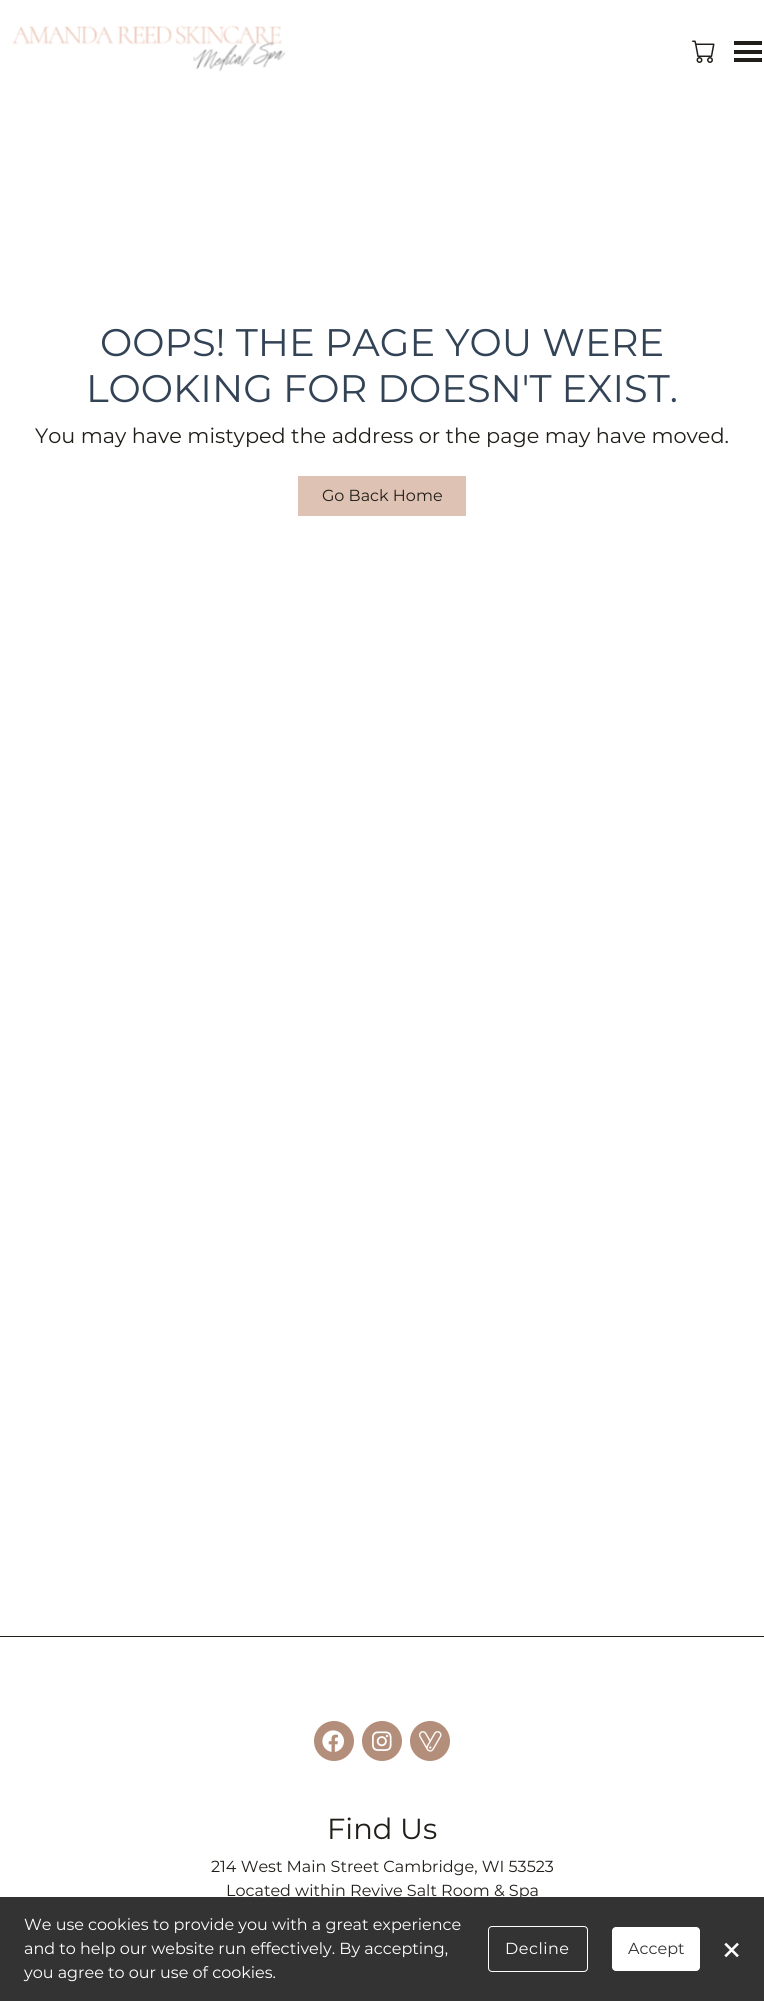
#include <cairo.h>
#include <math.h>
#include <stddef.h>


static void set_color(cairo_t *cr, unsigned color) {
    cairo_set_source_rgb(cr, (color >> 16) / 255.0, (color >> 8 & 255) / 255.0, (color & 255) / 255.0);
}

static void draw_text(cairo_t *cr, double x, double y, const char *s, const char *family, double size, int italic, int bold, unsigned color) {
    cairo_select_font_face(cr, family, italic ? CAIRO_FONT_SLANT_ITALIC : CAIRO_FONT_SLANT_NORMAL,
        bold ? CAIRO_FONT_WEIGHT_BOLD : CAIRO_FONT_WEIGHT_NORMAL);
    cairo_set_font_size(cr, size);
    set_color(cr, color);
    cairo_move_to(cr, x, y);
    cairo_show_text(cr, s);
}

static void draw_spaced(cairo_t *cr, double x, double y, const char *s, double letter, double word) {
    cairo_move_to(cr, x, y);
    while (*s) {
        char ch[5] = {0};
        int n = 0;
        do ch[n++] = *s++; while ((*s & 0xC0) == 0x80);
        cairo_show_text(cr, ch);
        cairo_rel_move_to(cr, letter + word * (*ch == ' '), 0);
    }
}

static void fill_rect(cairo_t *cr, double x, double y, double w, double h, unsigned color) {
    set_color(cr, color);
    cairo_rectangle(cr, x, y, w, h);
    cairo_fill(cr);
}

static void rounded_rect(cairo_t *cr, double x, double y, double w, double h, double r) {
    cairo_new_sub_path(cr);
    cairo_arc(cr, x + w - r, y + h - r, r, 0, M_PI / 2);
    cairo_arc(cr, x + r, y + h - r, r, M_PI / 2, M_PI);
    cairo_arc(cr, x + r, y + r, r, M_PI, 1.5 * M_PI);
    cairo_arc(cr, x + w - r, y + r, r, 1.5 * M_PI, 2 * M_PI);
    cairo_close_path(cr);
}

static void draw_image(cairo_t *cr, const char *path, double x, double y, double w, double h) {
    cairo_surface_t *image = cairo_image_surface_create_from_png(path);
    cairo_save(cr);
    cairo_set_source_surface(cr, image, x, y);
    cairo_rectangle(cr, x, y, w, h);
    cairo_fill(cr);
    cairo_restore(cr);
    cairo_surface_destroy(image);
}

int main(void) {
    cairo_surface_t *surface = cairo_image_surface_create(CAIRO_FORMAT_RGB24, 764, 2001);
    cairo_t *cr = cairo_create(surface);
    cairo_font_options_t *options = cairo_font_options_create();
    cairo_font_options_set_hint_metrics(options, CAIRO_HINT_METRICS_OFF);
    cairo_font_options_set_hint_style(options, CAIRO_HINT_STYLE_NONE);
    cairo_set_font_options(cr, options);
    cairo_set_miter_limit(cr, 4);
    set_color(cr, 0xFFFFFF);
    cairo_paint(cr);
    draw_image(cr, "assets/img1.png", 12, 25, 274, 46);
    draw_image(cr, "assets/img2.png", 692, 40, 23, 23);
    fill_rect(cr, 734, 41, 28, 4, 0x211E19);
    fill_rect(cr, 734, 50, 28, 4, 0x211E19);
    fill_rect(cr, 734, 58, 28, 4, 0x211E19);
    draw_text(cr, 100, 356, "OOPS! THE PAGE YOU WERE", "Montserrat Thin", 38.4, 0, 0, 0x334356);
    draw_text(cr, 86, 402, "LOOKING FOR DOESN'T EXIST.", "Montserrat Thin", 38.4, 0, 0, 0x334356);
    draw_text(cr, 35, 443, "You may have mistyped the address or the page may have moved.", "Montserrat Thin", 20.8, 0, 0, 0x211E19);
    fill_rect(cr, 298, 476, 168, 40, 0xDEC2B4);
    draw_text(cr, 322, 501, "Go Back Home", "Montserrat Thin", 16, 0, 0, 0x211E19);
    fill_rect(cr, 0, 1636, 764, 1, 0x211E19);
    set_color(cr, 0xB38E7B);
    cairo_new_path(cr);
    cairo_arc(cr, 334, 1741, 20, 0, 2 * M_PI);
    cairo_fill(cr);
    draw_image(cr, "assets/img3.png", 322, 1730, 22, 22);
    cairo_arc(cr, 382, 1741, 20, 0, 2 * M_PI);
    cairo_fill(cr);
    draw_image(cr, "assets/img4.png", 372, 1731, 20, 20);
    cairo_arc(cr, 430, 1741, 20, 0, 2 * M_PI);
    cairo_fill(cr);
    draw_image(cr, "assets/img5.png", 419, 1731, 23, 21);
    draw_text(cr, 327, 1839, "Find Us", "Montserrat Thin", 29, 0, 0, 0x211E19);
    draw_text(cr, 211, 1872, "214 West Main Street Cambridge, WI 53523", "Montserrat Thin", 16, 0, 0, 0x211E19);
    draw_text(cr, 226, 1896, "Located within Revive Salt Room & Spa", "Montserrat Thin", 16, 0, 0, 0x211E19);
    fill_rect(cr, 0, 1897, 764, 104, 0x333333);
    draw_text(cr, 24, 1930, "We use cookies to provide you with a great experience", "Montserrat Thin", 16, 0, 0, 0xFFFFFF);
    draw_text(cr, 24, 1954, "and to help our website run effectively. By accepting,", "Montserrat Thin", 16, 0, 0, 0xFFFFFF);
    draw_text(cr, 24, 1978, "you agree to our use of cookies.", "Montserrat Thin", 16, 0, 0, 0xFFFFFF);
    rounded_rect(cr, 488.5, 1926.5, 99, 45, 3.5);
    cairo_set_line_width(cr, 1);
    cairo_stroke(cr);
    draw_spaced(cr, 505, 1954, "Decline", 0.5, 0);
    rounded_rect(cr, 612, 1927, 88, 44, 4);
    cairo_fill(cr);
    draw_text(cr, 628, 1954, "Accept", "Montserrat Thin", 16, 0, 0, 0x333333);
    draw_text(cr, 722, 1960, "×", "DejaVu Sans Mono", 32, 0, 0, 0xFFFFFF);
    cairo_surface_write_to_png(surface, "output.png");
    cairo_font_options_destroy(options);
    cairo_destroy(cr);
    cairo_surface_destroy(surface);
    return 0;
}
